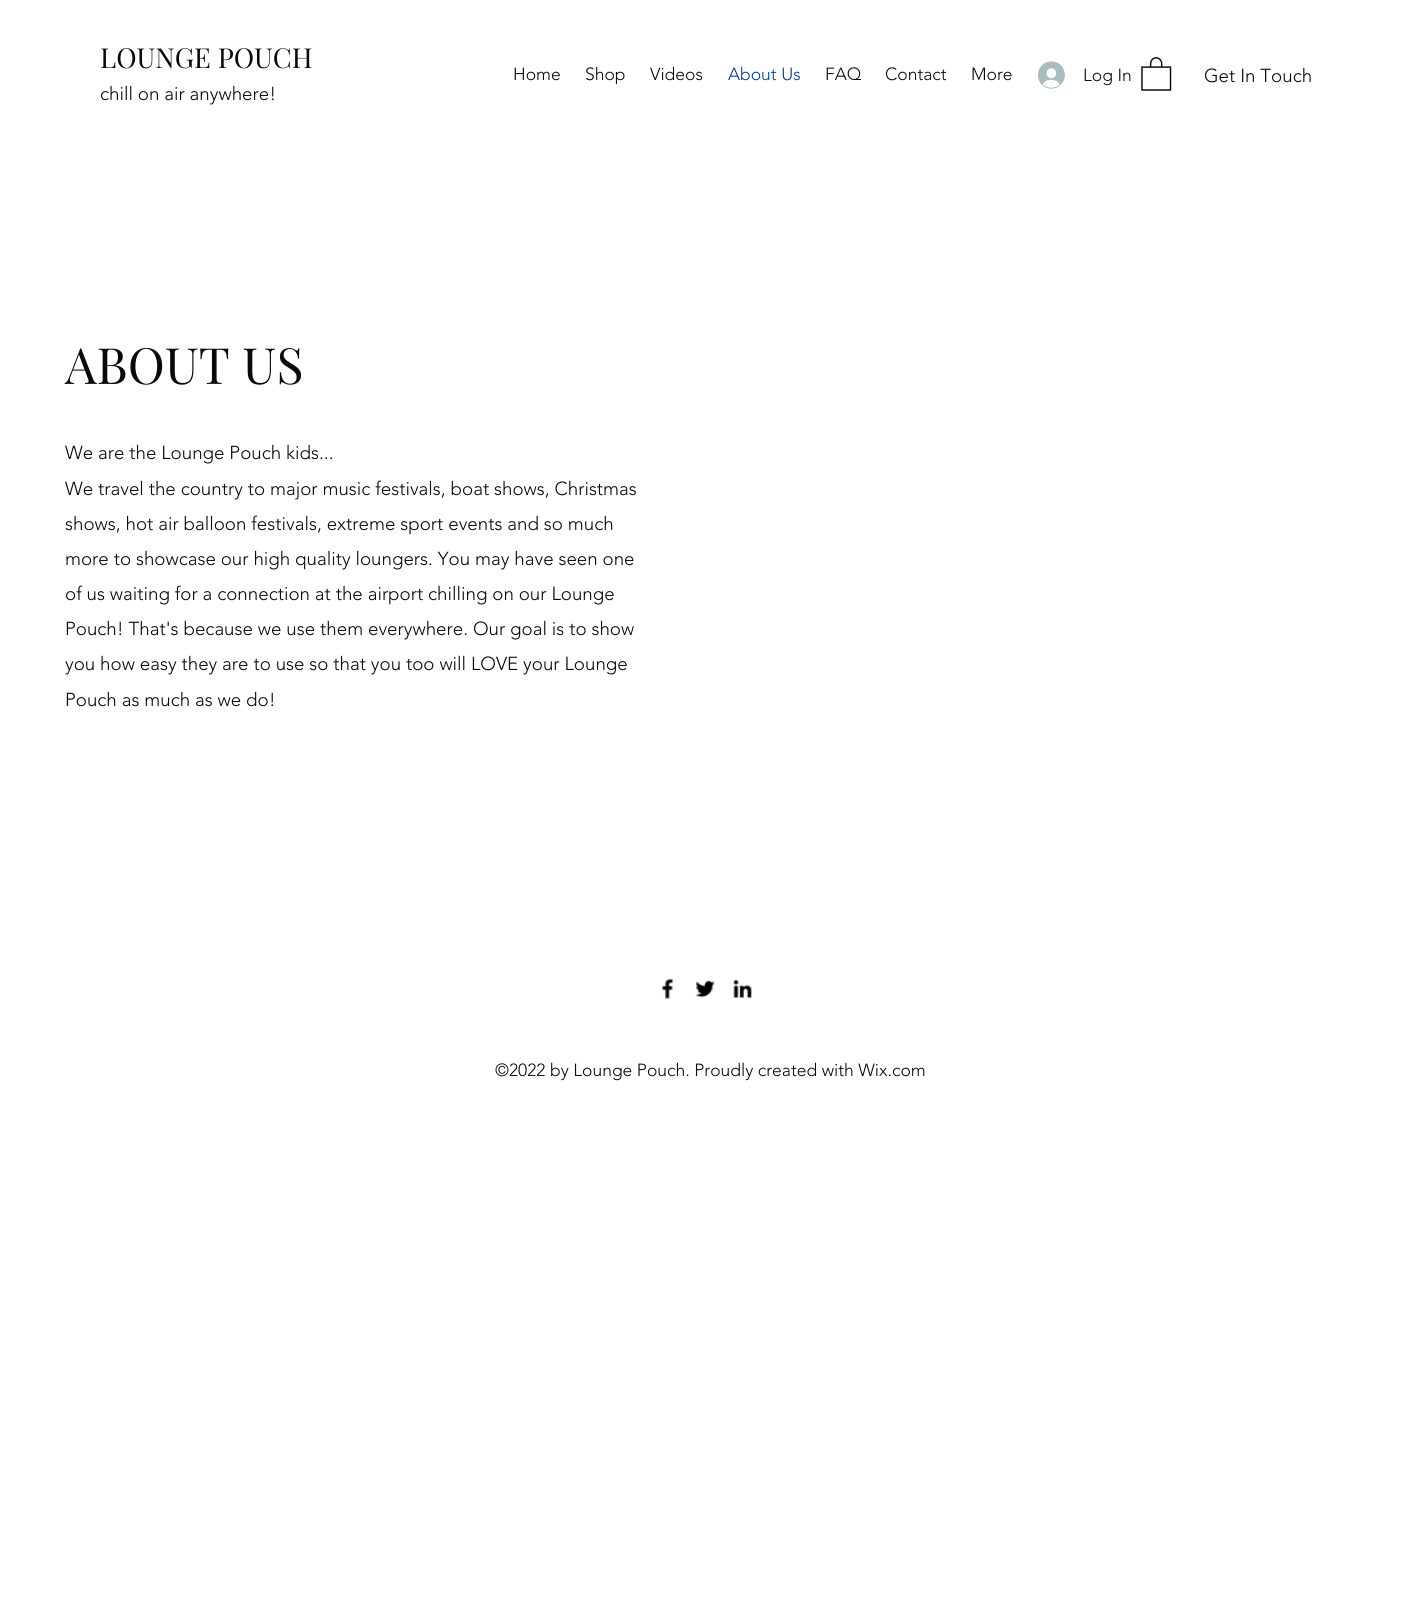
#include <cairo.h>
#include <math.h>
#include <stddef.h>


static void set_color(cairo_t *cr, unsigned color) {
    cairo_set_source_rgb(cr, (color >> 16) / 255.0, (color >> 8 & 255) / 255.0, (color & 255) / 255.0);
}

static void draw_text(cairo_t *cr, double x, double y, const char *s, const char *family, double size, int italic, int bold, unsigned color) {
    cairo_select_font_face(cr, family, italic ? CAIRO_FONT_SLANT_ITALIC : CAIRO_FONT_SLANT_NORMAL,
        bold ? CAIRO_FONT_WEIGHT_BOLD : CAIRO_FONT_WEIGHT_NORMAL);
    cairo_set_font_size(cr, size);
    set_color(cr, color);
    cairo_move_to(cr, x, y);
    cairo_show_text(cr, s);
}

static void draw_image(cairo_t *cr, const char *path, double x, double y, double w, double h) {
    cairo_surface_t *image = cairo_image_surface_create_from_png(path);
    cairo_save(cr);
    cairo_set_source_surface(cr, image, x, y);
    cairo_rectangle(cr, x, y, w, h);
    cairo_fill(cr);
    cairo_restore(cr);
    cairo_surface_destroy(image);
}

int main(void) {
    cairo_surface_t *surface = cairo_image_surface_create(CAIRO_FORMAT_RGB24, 1409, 1616);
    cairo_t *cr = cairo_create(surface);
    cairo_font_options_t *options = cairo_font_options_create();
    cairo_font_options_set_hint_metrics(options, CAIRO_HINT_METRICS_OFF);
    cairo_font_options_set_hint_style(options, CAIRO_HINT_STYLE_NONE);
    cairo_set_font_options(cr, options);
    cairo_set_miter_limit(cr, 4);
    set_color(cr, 0xFFFFFF);
    cairo_paint(cr);
    draw_text(cr, 100, 68, "LOUNGE POUCH", "Playfair Display", 27.5, 0, 0, 0x090909);
    draw_text(cr, 100, 100, "chill on air anywhere!", "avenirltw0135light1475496 Light", 18.75, 0, 0, 0x090909);
    draw_text(cr, 513, 80, "Home", "avenirltw0135light1475496 Light", 17.5, 0, 0, 0x090909);
    draw_text(cr, 585, 80, "Shop", "avenirltw0135light1475496 Light", 17.5, 0, 0, 0x090909);
    draw_text(cr, 650, 80, "Videos", "avenirltw0135light1475496 Light", 17.5, 0, 0, 0x090909);
    draw_text(cr, 728, 80, "About Us", "avenirltw0135light1475496 Light", 17.5, 0, 0, 0x053995);
    draw_text(cr, 825, 80, "FAQ", "avenirltw0135light1475496 Light", 17.5, 0, 0, 0x090909);
    draw_text(cr, 885, 80, "Contact", "avenirltw0135light1475496 Light", 17.5, 0, 0, 0x090909);
    draw_text(cr, 971, 80, "More", "avenirltw0135light1475496 Light", 17.5, 0, 0, 0x090909);
    draw_image(cr, "assets/img1.png", 1038, 61, 27, 28);
    draw_text(cr, 1083, 81, "Log In", "avenirltw0135light1475496 Light", 17.5, 0, 0, 0x090909);
    draw_image(cr, "assets/img2.png", 1141, 57, 31, 34);
    draw_text(cr, 1204, 82, "Get In Touch", "avenirltw0135light1475496 Light", 18.75, 0, 0, 0x090909);
    draw_text(cr, 65, 384, "ABOUT US", "Playfair Display", 50, 0, 0, 0x090909);
    draw_text(cr, 65, 459, "We are the Lounge Pouch kids...", "avenirltw0135light1475496 Light", 18.75, 0, 0, 0x090909);
    draw_text(cr, 65, 495, "We travel the country to major music festivals, boat shows, Christmas", "avenirltw0135light1475496 Light", 18.75, 0, 0, 0x090909);
    draw_text(cr, 65, 530, "shows, hot air balloon festivals, extreme sport events and so much", "avenirltw0135light1475496 Light", 18.75, 0, 0, 0x090909);
    draw_text(cr, 65, 565, "more to showcase our high quality loungers. You may have seen one", "avenirltw0135light1475496 Light", 18.75, 0, 0, 0x090909);
    draw_text(cr, 65, 600, "of us waiting for a connection at the airport chilling on our Lounge", "avenirltw0135light1475496 Light", 18.75, 0, 0, 0x090909);
    draw_text(cr, 65, 635, "Pouch! That's because we use them everywhere. Our goal is to show", "avenirltw0135light1475496 Light", 18.75, 0, 0, 0x090909);
    draw_text(cr, 65, 670, "you how easy they are to use so that you too will LOVE your Lounge", "avenirltw0135light1475496 Light", 18.75, 0, 0, 0x090909);
    draw_text(cr, 65, 706, "Pouch as much as we do!", "avenirltw0135light1475496 Light", 18.75, 0, 0, 0x090909);
    draw_image(cr, "assets/img3.png", 662, 978, 12, 21);
    draw_image(cr, "assets/img4.png", 695, 980, 20, 18);
    draw_image(cr, "assets/img5.png", 733, 979, 19, 20);
    draw_text(cr, 495, 1076, "©2022 by Lounge Pouch. Proudly created with Wix.com", "avenirltw0135light1475496 Light", 17.5, 0, 0, 0x090909);
    cairo_surface_write_to_png(surface, "output.png");
    cairo_font_options_destroy(options);
    cairo_destroy(cr);
    cairo_surface_destroy(surface);
    return 0;
}
